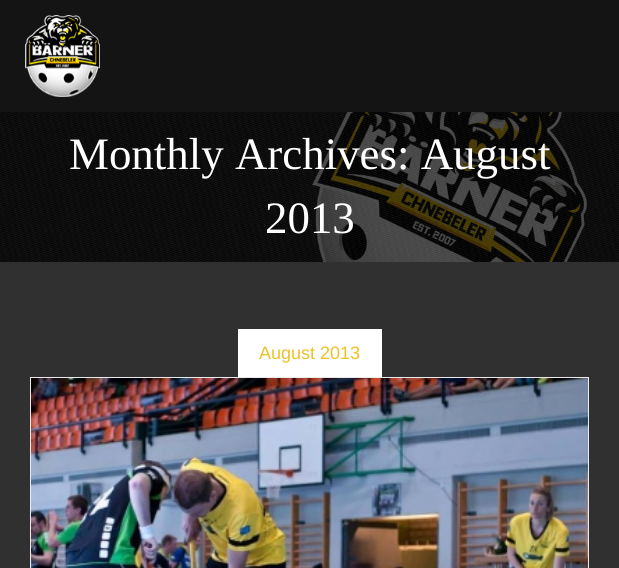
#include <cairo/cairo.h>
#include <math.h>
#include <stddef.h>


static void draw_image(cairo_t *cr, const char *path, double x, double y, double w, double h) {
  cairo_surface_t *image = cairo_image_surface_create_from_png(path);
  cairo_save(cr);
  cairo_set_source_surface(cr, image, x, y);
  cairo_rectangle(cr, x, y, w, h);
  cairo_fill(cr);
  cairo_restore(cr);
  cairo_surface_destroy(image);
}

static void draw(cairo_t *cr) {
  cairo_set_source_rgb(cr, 48 / 255.0, 48 / 255.0, 48 / 255.0);
  cairo_paint(cr);
  cairo_set_source_rgb(cr, 20 / 255.0, 20 / 255.0, 20 / 255.0);
  cairo_rectangle(cr, 0, 0, 619, 112);
  cairo_fill(cr);
  draw_image(cr, "images/1.png", 25, 15, 75, 82);
  draw_image(cr, "images/2.png", 0, 112, 619, 150);
  cairo_set_source_rgb(cr, 1, 1, 1);
  cairo_rectangle(cr, 238, 329, 144, 48);
  cairo_fill(cr);
  cairo_set_source_rgb(cr, 234 / 255.0, 234 / 255.0, 234 / 255.0);
  cairo_rectangle(cr, 30, 377, 559, 1);
  cairo_fill(cr);
  cairo_rectangle(cr, 588, 377, 1, 191);
  cairo_fill(cr);
  cairo_rectangle(cr, 30, 377, 1, 191);
  cairo_fill(cr);
  draw_image(cr, "images/3.png", 31, 378, 557, 190);
  cairo_select_font_face(cr, "Liberation Serif", CAIRO_FONT_SLANT_NORMAL, CAIRO_FONT_WEIGHT_NORMAL);
  cairo_set_font_size(cr, 44.9);
  cairo_set_source_rgb(cr, 1, 1, 1);
  cairo_move_to(cr, 69, 169);
  cairo_show_text(cr, "Monthly Archives: August");
  cairo_move_to(cr, 265, 233);
  cairo_show_text(cr, "2013");
  cairo_select_font_face(cr, "Liberation Sans", CAIRO_FONT_SLANT_NORMAL, CAIRO_FONT_WEIGHT_NORMAL);
  cairo_set_font_size(cr, 18);
  cairo_set_source_rgb(cr, 238 / 255.0, 193 / 255.0, 38 / 255.0);
  cairo_move_to(cr, 259, 359);
  cairo_show_text(cr, "August 2013");
}

int main(void) {
  cairo_surface_t *surface = cairo_image_surface_create(CAIRO_FORMAT_RGB24, 619, 568);
  cairo_t *cr = cairo_create(surface);
  cairo_font_options_t *options = cairo_font_options_create();
  cairo_font_options_set_hint_metrics(options, CAIRO_HINT_METRICS_OFF);
  cairo_font_options_set_hint_style(options, CAIRO_HINT_STYLE_NONE);
  cairo_set_font_options(cr, options);
  cairo_set_miter_limit(cr, 4);
  draw(cr);
  cairo_surface_write_to_png(surface, "out.png");
  cairo_font_options_destroy(options);
  cairo_destroy(cr);
  cairo_surface_destroy(surface);
  return 0;
}
